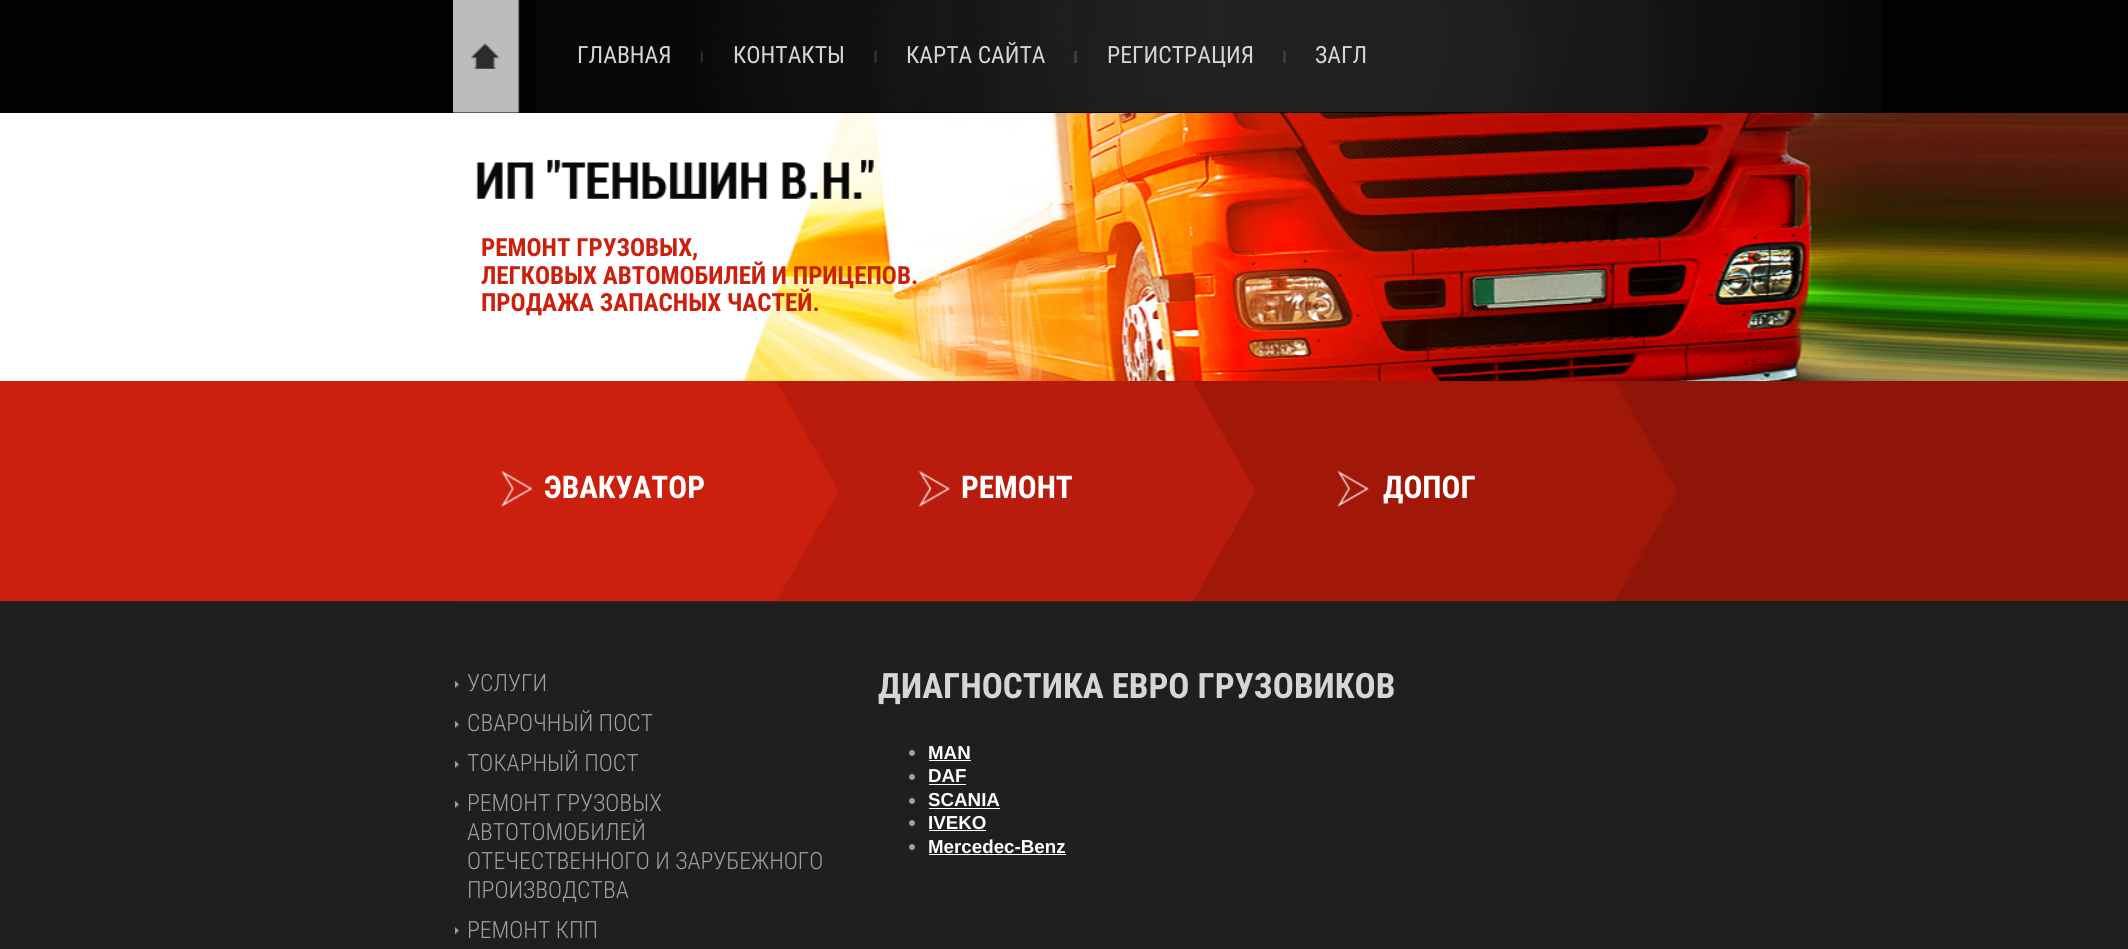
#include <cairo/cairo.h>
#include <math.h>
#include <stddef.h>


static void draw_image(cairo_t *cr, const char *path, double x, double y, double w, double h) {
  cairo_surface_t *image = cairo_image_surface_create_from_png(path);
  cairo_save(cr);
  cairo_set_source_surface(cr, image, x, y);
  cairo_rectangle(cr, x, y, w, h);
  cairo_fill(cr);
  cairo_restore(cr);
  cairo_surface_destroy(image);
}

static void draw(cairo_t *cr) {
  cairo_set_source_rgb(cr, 1, 1, 1);
  cairo_paint(cr);
  cairo_set_source_rgb(cr, 2 / 255.0, 2 / 255.0, 2 / 255.0);
  cairo_rectangle(cr, 0, 0, 2128, 113);
  cairo_fill(cr);
  draw_image(cr, "images/1.png", 536, 0, 1346, 112);
  draw_image(cr, "images/2.png", 453, 0, 67, 113);
  draw_image(cr, "images/3.png", 701, 51, 2, 12);
  cairo_set_source_rgb(cr, 46 / 255.0, 46 / 255.0, 46 / 255.0);
  cairo_rectangle(cr, 874, 51, 3, 12);
  cairo_fill(cr);
  cairo_set_source_rgb(cr, 61 / 255.0, 61 / 255.0, 61 / 255.0);
  cairo_rectangle(cr, 1074, 51, 3, 12);
  cairo_fill(cr);
  cairo_set_source_rgb(cr, 57 / 255.0, 57 / 255.0, 57 / 255.0);
  cairo_rectangle(cr, 1283, 51, 3, 12);
  cairo_fill(cr);
  draw_image(cr, "images/4.png", 742, 113, 1386, 268);
  draw_image(cr, "images/5.png", 476, 159, 398, 40);
  cairo_set_source_rgb(cr, 31 / 255.0, 31 / 255.0, 31 / 255.0);
  cairo_rectangle(cr, 0, 601, 2128, 348);
  cairo_fill(cr);
  cairo_set_source_rgb(cr, 203 / 255.0, 32 / 255.0, 14 / 255.0);
  cairo_rectangle(cr, 0, 381, 1065, 220);
  cairo_fill(cr);
  cairo_set_source_rgb(cr, 142 / 255.0, 21 / 255.0, 8 / 255.0);
  cairo_rectangle(cr, 1065, 381, 1063, 220);
  cairo_fill(cr);
  draw_image(cr, "images/6.png", 451, 601, 327, 1);
  draw_image(cr, "images/7.png", 501, 470, 32, 37);
  draw_image(cr, "images/8.png", 776, 381, 481, 221);
  draw_image(cr, "images/9.png", 918, 470, 32, 37);
  draw_image(cr, "images/10.png", 1193, 381, 485, 221);
  draw_image(cr, "images/11.png", 1337, 470, 32, 37);
  draw_image(cr, "images/12.png", 455, 681, 4, 7);
  draw_image(cr, "images/12.png", 455, 721, 4, 7);
  draw_image(cr, "images/12.png", 455, 761, 4, 7);
  draw_image(cr, "images/12.png", 455, 801, 4, 7);
  draw_image(cr, "images/13.png", 455, 927, 4, 7);
  cairo_set_source_rgb(cr, 158 / 255.0, 159 / 255.0, 159 / 255.0);
  cairo_arc(cr, 912, 753, 3, 0, 2 * M_PI);
  cairo_fill(cr);
  cairo_set_source_rgb(cr, 1, 1, 1);
  cairo_rectangle(cr, 929, 760, 42, 1);
  cairo_fill(cr);
  cairo_set_source_rgb(cr, 158 / 255.0, 159 / 255.0, 159 / 255.0);
  cairo_arc(cr, 912, 777, 3, 0, 2 * M_PI);
  cairo_fill(cr);
  cairo_set_source_rgb(cr, 1, 1, 1);
  cairo_rectangle(cr, 929, 784, 37, 1);
  cairo_fill(cr);
  cairo_set_source_rgb(cr, 158 / 255.0, 159 / 255.0, 159 / 255.0);
  cairo_arc(cr, 912, 801, 3, 0, 2 * M_PI);
  cairo_fill(cr);
  cairo_set_source_rgb(cr, 1, 1, 1);
  cairo_rectangle(cr, 929, 808, 71, 1);
  cairo_fill(cr);
  cairo_set_source_rgb(cr, 158 / 255.0, 159 / 255.0, 159 / 255.0);
  cairo_arc(cr, 912, 823, 3, 0, 2 * M_PI);
  cairo_fill(cr);
  cairo_set_source_rgb(cr, 1, 1, 1);
  cairo_rectangle(cr, 929, 830, 57, 1);
  cairo_fill(cr);
  cairo_set_source_rgb(cr, 158 / 255.0, 159 / 255.0, 159 / 255.0);
  cairo_arc(cr, 912, 847, 3, 0, 2 * M_PI);
  cairo_fill(cr);
  cairo_set_source_rgb(cr, 1, 1, 1);
  cairo_rectangle(cr, 929, 854, 137, 1);
  cairo_fill(cr);
  cairo_select_font_face(cr, "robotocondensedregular", CAIRO_FONT_SLANT_NORMAL, CAIRO_FONT_WEIGHT_NORMAL);
  cairo_set_font_size(cr, 23.75);
  cairo_set_source_rgb(cr, 214 / 255.0, 214 / 255.0, 214 / 255.0);
  cairo_move_to(cr, 577, 63);
  cairo_show_text(cr, "ГЛАВНАЯ");
  cairo_move_to(cr, 733, 63);
  cairo_show_text(cr, "КОНТАКТЫ");
  cairo_move_to(cr, 906, 63);
  cairo_show_text(cr, "КАРТА САЙТА");
  cairo_move_to(cr, 1107, 63);
  cairo_show_text(cr, "РЕГИСТРАЦИЯ");
  cairo_move_to(cr, 1315, 63);
  cairo_show_text(cr, "ЗАГЛ");
  cairo_select_font_face(cr, "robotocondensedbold", CAIRO_FONT_SLANT_NORMAL, CAIRO_FONT_WEIGHT_BOLD);
  cairo_set_font_size(cr, 25);
  cairo_set_source_rgb(cr, 203 / 255.0, 32 / 255.0, 14 / 255.0);
  cairo_move_to(cr, 481, 256);
  cairo_show_text(cr, "РЕМОНТ ГРУЗОВЫХ,");
  cairo_move_to(cr, 481, 284);
  cairo_show_text(cr, "ЛЕГКОВЫХ АВТОМОБИЛЕЙ И ПРИЦЕПОВ.");
  cairo_move_to(cr, 481, 311);
  cairo_show_text(cr, "ПРОДАЖА ЗАПАСНЫХ ЧАСТЕЙ.");
  cairo_set_font_size(cr, 31.25);
  cairo_set_source_rgb(cr, 1, 1, 1);
  cairo_move_to(cr, 544, 498);
  cairo_show_text(cr, "ЭВАКУАТОР");
  cairo_move_to(cr, 961, 498);
  cairo_show_text(cr, "РЕМОНТ");
  cairo_move_to(cr, 1383, 498);
  cairo_show_text(cr, "ДОПОГ");
  cairo_select_font_face(cr, "Roboto Condensed Light", CAIRO_FONT_SLANT_NORMAL, CAIRO_FONT_WEIGHT_NORMAL);
  cairo_set_font_size(cr, 23.75);
  cairo_set_source_rgb(cr, 160 / 255.0, 160 / 255.0, 160 / 255.0);
  cairo_move_to(cr, 467, 691);
  cairo_show_text(cr, "УСЛУГИ");
  cairo_move_to(cr, 467, 731);
  cairo_show_text(cr, "СВАРОЧНЫЙ ПОСТ");
  cairo_move_to(cr, 467, 771);
  cairo_show_text(cr, "ТОКАРНЫЙ ПОСТ");
  cairo_move_to(cr, 467, 811);
  cairo_show_text(cr, "РЕМОНТ ГРУЗОВЫХ");
  cairo_move_to(cr, 467, 840);
  cairo_show_text(cr, "АВТОТОМОБИЛЕЙ");
  cairo_move_to(cr, 467, 869);
  cairo_show_text(cr, "ОТЕЧЕСТВЕННОГО И ЗАРУБЕЖНОГО");
  cairo_move_to(cr, 467, 898);
  cairo_show_text(cr, "ПРОИЗВОДСТВА");
  cairo_move_to(cr, 467, 938);
  cairo_show_text(cr, "РЕМОНТ КПП");
  cairo_select_font_face(cr, "robotocondensedbold", CAIRO_FONT_SLANT_NORMAL, CAIRO_FONT_WEIGHT_BOLD);
  cairo_set_font_size(cr, 35);
  cairo_set_source_rgb(cr, 214 / 255.0, 214 / 255.0, 214 / 255.0);
  cairo_move_to(cr, 878, 698);
  cairo_show_text(cr, "ДИАГНОСТИКА ЕВРО ГРУЗОВИКОВ");
  cairo_select_font_face(cr, "Liberation Sans", CAIRO_FONT_SLANT_NORMAL, CAIRO_FONT_WEIGHT_BOLD);
  cairo_set_font_size(cr, 18.75);
  cairo_set_source_rgb(cr, 1, 1, 1);
  cairo_move_to(cr, 928, 759);
  cairo_show_text(cr, "MAN");
  cairo_move_to(cr, 928, 782);
  cairo_show_text(cr, "DAF");
  cairo_move_to(cr, 928, 806);
  cairo_show_text(cr, "SCANIA");
  cairo_move_to(cr, 928, 829);
  cairo_show_text(cr, "IVEKO");
  cairo_move_to(cr, 928, 853);
  cairo_show_text(cr, "Mercedec-Benz");
}

int main(void) {
  cairo_surface_t *surface = cairo_image_surface_create(CAIRO_FORMAT_RGB24, 2128, 949);
  cairo_t *cr = cairo_create(surface);
  cairo_font_options_t *options = cairo_font_options_create();
  cairo_font_options_set_hint_metrics(options, CAIRO_HINT_METRICS_OFF);
  cairo_font_options_set_hint_style(options, CAIRO_HINT_STYLE_NONE);
  cairo_set_font_options(cr, options);
  cairo_set_miter_limit(cr, 4);
  draw(cr);
  cairo_surface_write_to_png(surface, "out.png");
  cairo_font_options_destroy(options);
  cairo_destroy(cr);
  cairo_surface_destroy(surface);
  return 0;
}
